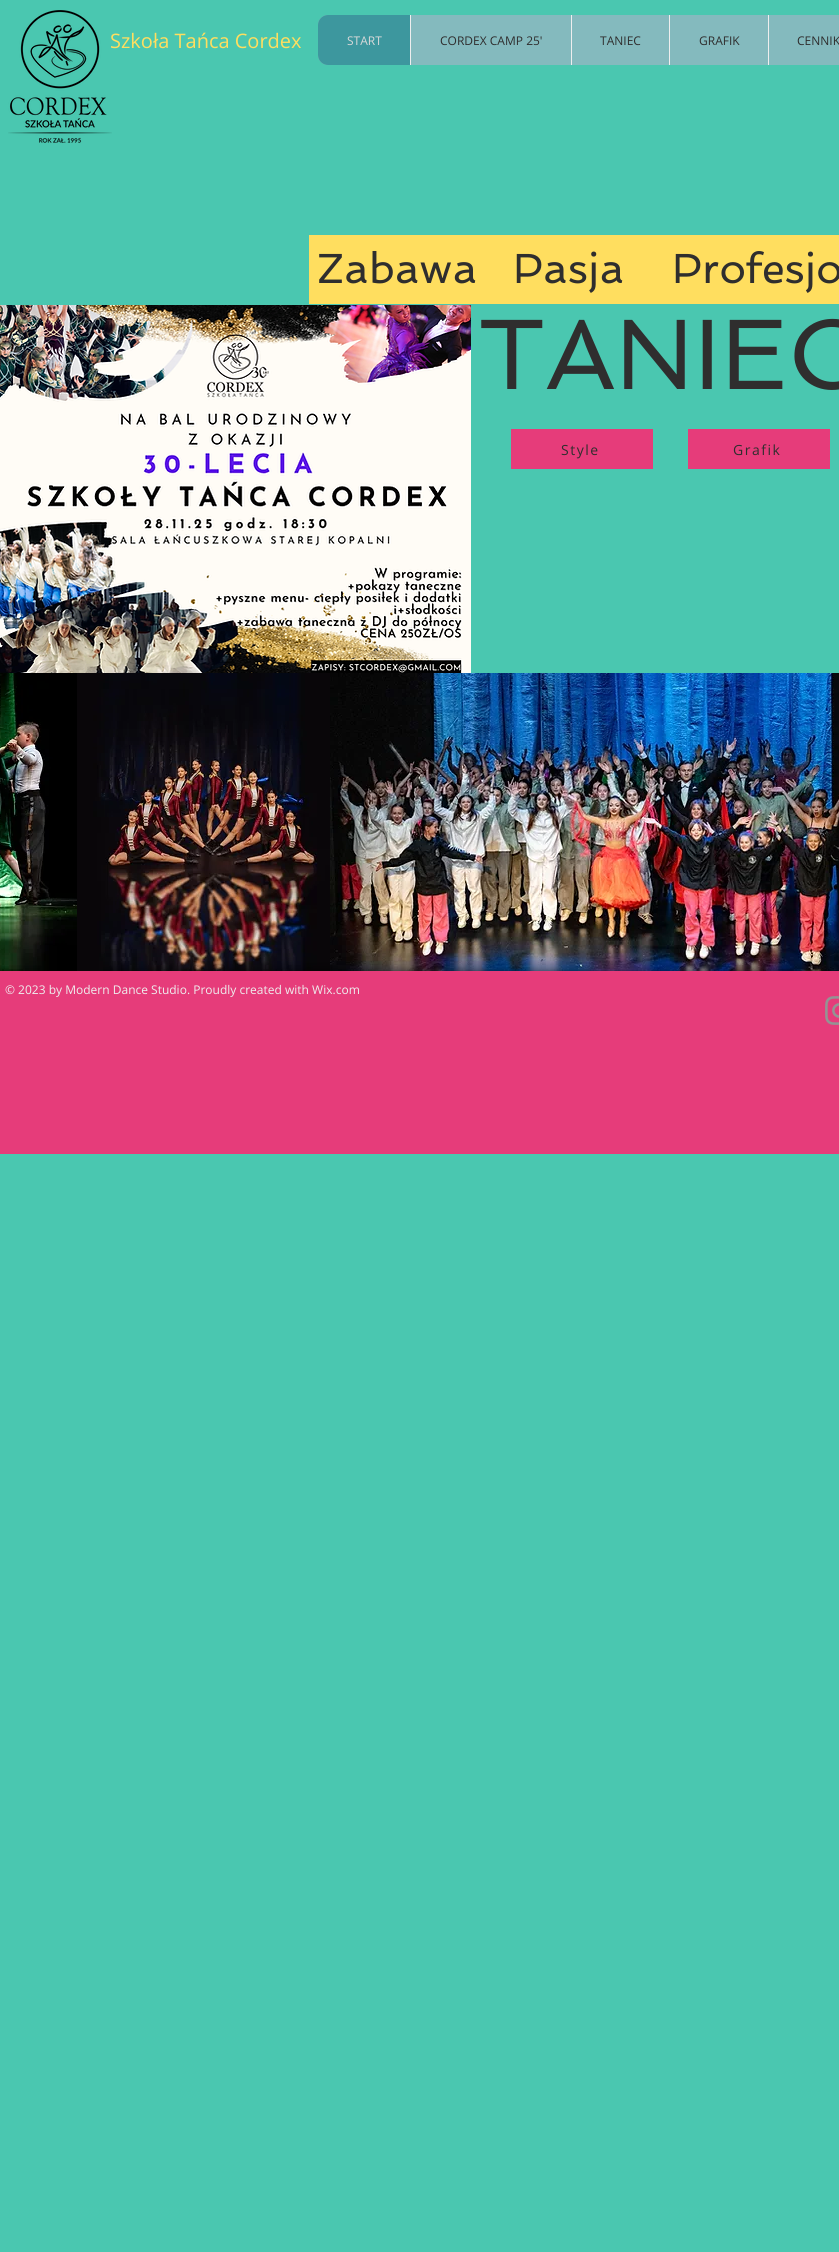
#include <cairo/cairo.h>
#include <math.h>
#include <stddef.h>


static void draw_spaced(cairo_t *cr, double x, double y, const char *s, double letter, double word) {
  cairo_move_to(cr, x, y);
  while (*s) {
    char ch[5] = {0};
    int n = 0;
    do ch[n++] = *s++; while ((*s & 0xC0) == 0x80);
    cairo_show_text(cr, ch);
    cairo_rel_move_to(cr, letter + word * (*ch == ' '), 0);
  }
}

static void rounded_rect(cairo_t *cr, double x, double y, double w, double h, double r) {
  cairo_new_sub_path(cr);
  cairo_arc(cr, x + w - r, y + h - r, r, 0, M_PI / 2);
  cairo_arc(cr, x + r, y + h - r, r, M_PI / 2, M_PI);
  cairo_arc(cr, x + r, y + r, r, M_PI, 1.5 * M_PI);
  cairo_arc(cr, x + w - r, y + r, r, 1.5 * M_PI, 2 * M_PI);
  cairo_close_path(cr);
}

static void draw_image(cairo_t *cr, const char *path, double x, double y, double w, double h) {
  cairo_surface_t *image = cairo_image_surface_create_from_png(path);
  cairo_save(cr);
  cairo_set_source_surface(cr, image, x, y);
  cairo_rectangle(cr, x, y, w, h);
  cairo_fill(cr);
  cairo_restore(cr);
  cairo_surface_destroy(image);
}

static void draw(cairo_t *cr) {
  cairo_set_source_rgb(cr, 74 / 255.0, 199 / 255.0, 176 / 255.0);
  cairo_paint(cr);
  draw_image(cr, "images/1.png", 8, 10, 104, 133);
  cairo_set_source_rgb(cr, 132 / 255.0, 186 / 255.0, 190 / 255.0);
  rounded_rect(cr, 318, 15, 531, 50, 10);
  cairo_fill(cr);
  cairo_set_source_rgb(cr, 61 / 255.0, 151 / 255.0, 158 / 255.0);
  cairo_new_path(cr);
  cairo_move_to(cr, 328, 15);
  cairo_line_to(cr, 410, 15);
  cairo_line_to(cr, 410, 65);
  cairo_line_to(cr, 328, 65);
  cairo_curve_to(cr, 322.5, 65, 318, 60.5, 318, 55);
  cairo_line_to(cr, 318, 25);
  cairo_curve_to(cr, 318, 19.5, 322.5, 15, 328, 15);
  cairo_close_path(cr);
  cairo_fill(cr);
  cairo_set_source_rgb(cr, 238 / 255.0, 238 / 255.0, 238 / 255.0);
  cairo_rectangle(cr, 410, 15, 1, 50);
  cairo_fill(cr);
  cairo_rectangle(cr, 571, 15, 1, 50);
  cairo_fill(cr);
  cairo_rectangle(cr, 669, 15, 1, 50);
  cairo_fill(cr);
  cairo_rectangle(cr, 768, 15, 1, 50);
  cairo_fill(cr);
  cairo_set_source_rgb(cr, 1, 222 / 255.0, 95 / 255.0);
  cairo_rectangle(cr, 309, 235, 530, 69);
  cairo_fill(cr);
  draw_image(cr, "images/2.png", 0, 305, 471, 368);
  cairo_set_source_rgb(cr, 230 / 255.0, 60 / 255.0, 122 / 255.0);
  cairo_rectangle(cr, 511, 429, 142, 40);
  cairo_fill(cr);
  cairo_rectangle(cr, 688, 429, 142, 40);
  cairo_fill(cr);
  draw_image(cr, "images/3.png", 0, 673, 77, 298);
  draw_image(cr, "images/4.png", 77, 673, 253, 298);
  draw_image(cr, "images/5.png", 330, 673, 509, 298);
  cairo_rectangle(cr, 0, 971, 839, 183);
  cairo_fill(cr);
  draw_image(cr, "images/6.png", 103, 960, 736, 11);
  draw_image(cr, "images/7.png", 825, 996, 14, 29);
  cairo_select_font_face(cr, "Open Sans", CAIRO_FONT_SLANT_NORMAL, CAIRO_FONT_WEIGHT_NORMAL);
  cairo_set_font_size(cr, 20);
  cairo_set_source_rgb(cr, 1, 222 / 255.0, 95 / 255.0);
  cairo_move_to(cr, 110, 48);
  cairo_show_text(cr, "Szkoła Tańca Cordex");
  cairo_set_font_size(cr, 12);
  cairo_set_source_rgb(cr, 217 / 255.0, 217 / 255.0, 217 / 255.0);
  cairo_move_to(cr, 347, 45);
  cairo_show_text(cr, "START");
  cairo_set_source_rgb(cr, 47 / 255.0, 46 / 255.0, 46 / 255.0);
  cairo_move_to(cr, 440, 45);
  cairo_show_text(cr, "CORDEX CAMP 25'");
  cairo_move_to(cr, 600, 45);
  cairo_show_text(cr, "TANIEC");
  cairo_move_to(cr, 699, 45);
  cairo_show_text(cr, "GRAFIK");
  cairo_move_to(cr, 797, 45);
  cairo_show_text(cr, "CENNIK");
  cairo_select_font_face(cr, "Spinnaker", CAIRO_FONT_SLANT_NORMAL, CAIRO_FONT_WEIGHT_NORMAL);
  cairo_set_font_size(cr, 42);
  cairo_move_to(cr, 317, 283);
  cairo_show_text(cr, "Zabawa   Pasja    Profesjo");
  cairo_set_font_size(cr, 100);
  cairo_move_to(cr, 478, 389);
  cairo_show_text(cr, "TANIEC");
  cairo_select_font_face(cr, "Open Sans", CAIRO_FONT_SLANT_NORMAL, CAIRO_FONT_WEIGHT_NORMAL);
  cairo_set_font_size(cr, 14);
  draw_spaced(cr, 561, 455, "Style", 1.5, 0);
  draw_spaced(cr, 733, 455, "Grafik", 1.5, 0);
  cairo_set_font_size(cr, 12);
  cairo_set_source_rgb(cr, 238 / 255.0, 238 / 255.0, 238 / 255.0);
  cairo_move_to(cr, 5, 994);
  cairo_show_text(cr, "© 2023 by Modern Dance Studio. Proudly created with Wix.com");
}

int main(void) {
  cairo_surface_t *surface = cairo_image_surface_create(CAIRO_FORMAT_RGB24, 839, 2252);
  cairo_t *cr = cairo_create(surface);
  cairo_font_options_t *options = cairo_font_options_create();
  cairo_font_options_set_hint_metrics(options, CAIRO_HINT_METRICS_OFF);
  cairo_font_options_set_hint_style(options, CAIRO_HINT_STYLE_NONE);
  cairo_set_font_options(cr, options);
  cairo_set_miter_limit(cr, 4);
  draw(cr);
  cairo_surface_write_to_png(surface, "out.png");
  cairo_font_options_destroy(options);
  cairo_destroy(cr);
  cairo_surface_destroy(surface);
  return 0;
}
